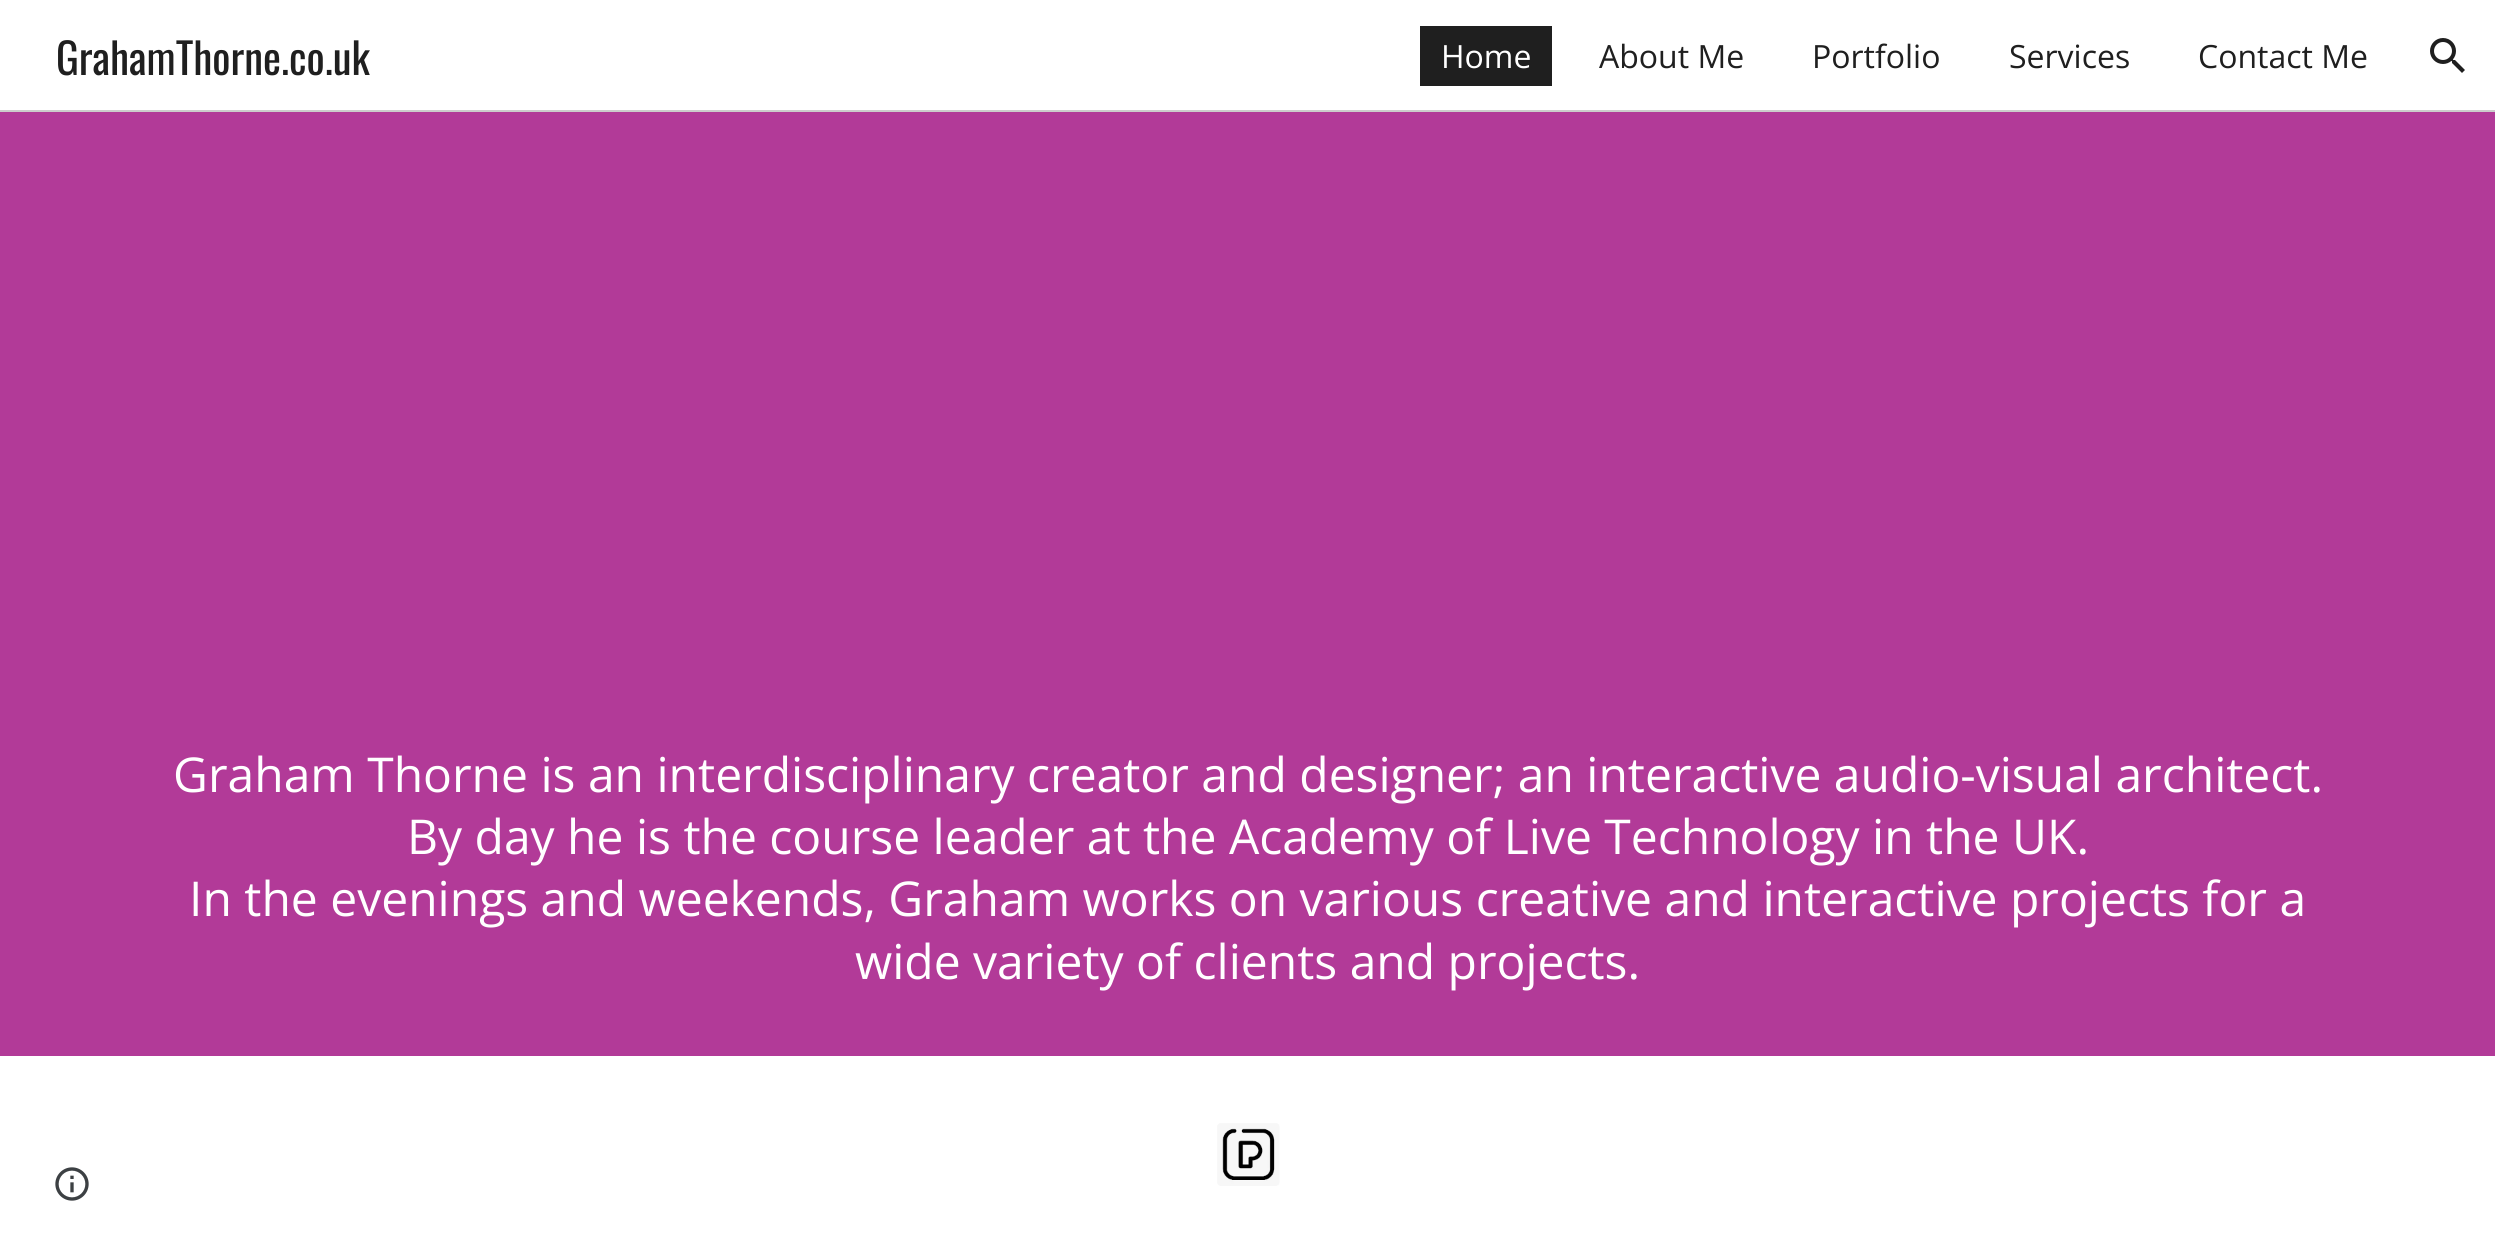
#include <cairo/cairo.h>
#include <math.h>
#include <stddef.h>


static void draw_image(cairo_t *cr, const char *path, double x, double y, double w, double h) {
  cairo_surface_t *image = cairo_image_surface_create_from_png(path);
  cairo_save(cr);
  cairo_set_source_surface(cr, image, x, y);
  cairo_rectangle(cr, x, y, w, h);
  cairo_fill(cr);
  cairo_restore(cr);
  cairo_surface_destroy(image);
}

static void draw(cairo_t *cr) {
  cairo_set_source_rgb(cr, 1, 1, 1);
  cairo_paint(cr);
  cairo_set_source_rgb(cr, 31 / 255.0, 31 / 255.0, 31 / 255.0);
  cairo_rectangle(cr, 1420, 26, 132, 60);
  cairo_fill(cr);
  draw_image(cr, "images/1.png", 2430, 38, 35, 35);
  cairo_set_source_rgb(cr, 204 / 255.0, 204 / 255.0, 204 / 255.0);
  cairo_rectangle(cr, 0, 110, 2495, 2);
  cairo_fill(cr);
  cairo_set_source_rgb(cr, 178 / 255.0, 58 / 255.0, 152 / 255.0);
  cairo_rectangle(cr, 0, 112, 2495, 944);
  cairo_fill(cr);
  draw_image(cr, "images/2.png", 1217, 1123, 63, 63);
  draw_image(cr, "images/3.png", 55, 1167, 34, 34);
  cairo_select_font_face(cr, "Oswald", CAIRO_FONT_SLANT_NORMAL, CAIRO_FONT_WEIGHT_NORMAL);
  cairo_set_font_size(cr, 42.75);
  cairo_set_source_rgb(cr, 31 / 255.0, 31 / 255.0, 31 / 255.0);
  cairo_move_to(cr, 56, 75);
  cairo_show_text(cr, "GrahamThorne.co.uk");
  cairo_select_font_face(cr, "Open Sans", CAIRO_FONT_SLANT_NORMAL, CAIRO_FONT_WEIGHT_NORMAL);
  cairo_set_font_size(cr, 32);
  cairo_set_source_rgb(cr, 1, 1, 1);
  cairo_move_to(cr, 1441, 68);
  cairo_show_text(cr, "Home");
  cairo_set_source_rgb(cr, 31 / 255.0, 31 / 255.0, 31 / 255.0);
  cairo_move_to(cr, 1599, 68);
  cairo_show_text(cr, "About Me");
  cairo_move_to(cr, 1812, 68);
  cairo_show_text(cr, "Portfolio");
  cairo_move_to(cr, 2009, 68);
  cairo_show_text(cr, "Services");
  cairo_move_to(cr, 2198, 68);
  cairo_show_text(cr, "Contact Me");
  cairo_set_font_size(cr, 48);
  cairo_set_source_rgb(cr, 1, 1, 1);
  cairo_move_to(cr, 173, 792);
  cairo_show_text(cr, "Graham Thorne is an interdisciplinary creator and designer; an interactive audio-visual architect.");
  cairo_move_to(cr, 407, 854);
  cairo_show_text(cr, "By day he is the course leader at the Academy of Live Technology in the UK.");
  cairo_move_to(cr, 189, 916);
  cairo_show_text(cr, "In the evenings and weekends, Graham works on various creative and interactive projects for a");
  cairo_move_to(cr, 855, 979);
  cairo_show_text(cr, "wide variety of clients and projects.");
}

int main(void) {
  cairo_surface_t *surface = cairo_image_surface_create(CAIRO_FORMAT_RGB24, 2495, 1252);
  cairo_t *cr = cairo_create(surface);
  cairo_font_options_t *options = cairo_font_options_create();
  cairo_font_options_set_hint_metrics(options, CAIRO_HINT_METRICS_OFF);
  cairo_font_options_set_hint_style(options, CAIRO_HINT_STYLE_NONE);
  cairo_set_font_options(cr, options);
  cairo_set_miter_limit(cr, 4);
  draw(cr);
  cairo_surface_write_to_png(surface, "out.png");
  cairo_font_options_destroy(options);
  cairo_destroy(cr);
  cairo_surface_destroy(surface);
  return 0;
}
